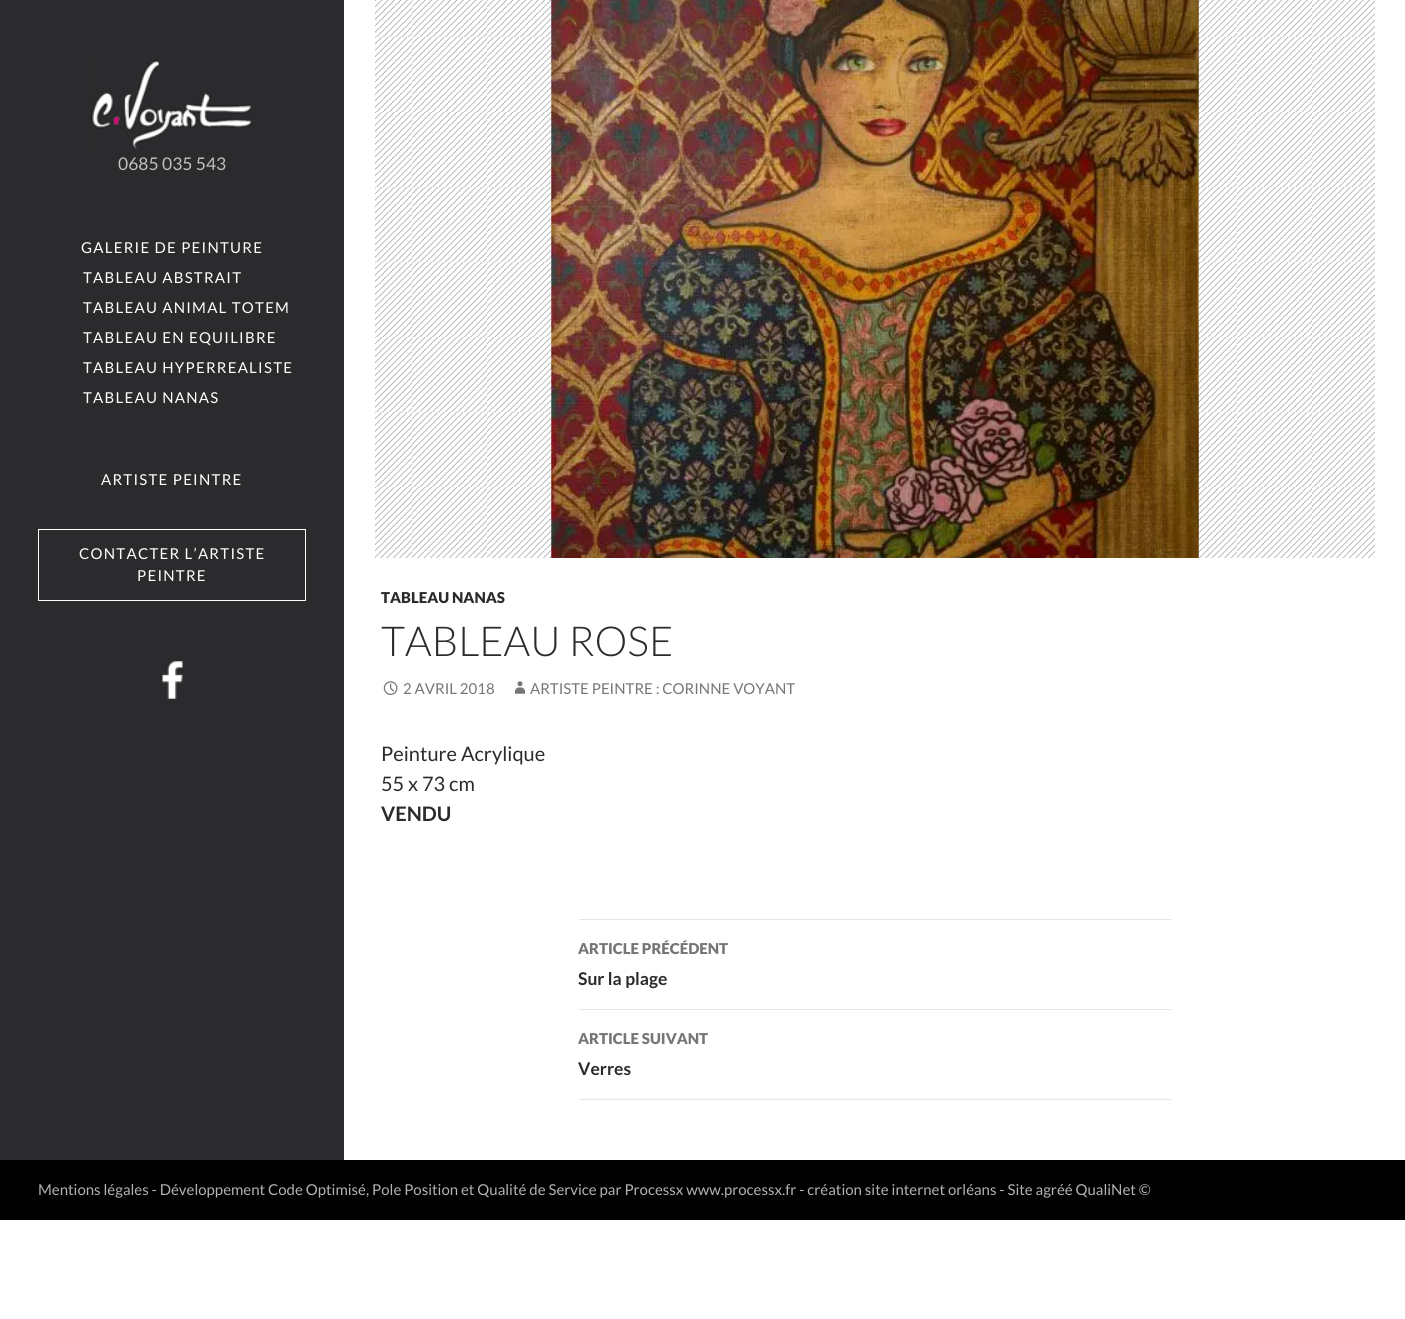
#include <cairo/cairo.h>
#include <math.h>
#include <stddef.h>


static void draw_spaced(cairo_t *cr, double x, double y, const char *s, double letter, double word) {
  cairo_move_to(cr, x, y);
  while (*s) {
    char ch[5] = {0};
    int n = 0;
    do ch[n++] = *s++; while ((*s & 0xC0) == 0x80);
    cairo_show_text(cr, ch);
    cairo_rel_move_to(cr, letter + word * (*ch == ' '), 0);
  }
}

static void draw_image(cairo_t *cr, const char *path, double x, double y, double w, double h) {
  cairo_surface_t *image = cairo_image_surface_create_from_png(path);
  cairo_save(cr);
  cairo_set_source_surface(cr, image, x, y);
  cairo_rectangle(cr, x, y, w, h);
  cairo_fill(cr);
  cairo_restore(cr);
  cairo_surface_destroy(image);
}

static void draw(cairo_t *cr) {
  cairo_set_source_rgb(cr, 1, 1, 1);
  cairo_paint(cr);
  cairo_set_source_rgb(cr, 43 / 255.0, 43 / 255.0, 45 / 255.0);
  cairo_rectangle(cr, 0, 0, 344, 1160);
  cairo_fill(cr);
  draw_image(cr, "images/1.png", 91, 60, 162, 89);
  cairo_rectangle(cr, 38.5, 529.5, 267, 71);
  cairo_set_source_rgb(cr, 1, 1, 1);
  cairo_set_line_width(cr, 1);
  cairo_stroke(cr);
  draw_image(cr, "images/2.png", 162, 661, 21, 38);
  cairo_set_source_rgb(cr, 178 / 255.0, 178 / 255.0, 178 / 255.0);
  cairo_rectangle(cr, 375, 0, 1000, 558);
  cairo_fill(cr);
  draw_image(cr, "images/3.png", 375, 0, 1000, 558);
  draw_image(cr, "images/4.png", 551, 0, 648, 558);
  draw_image(cr, "images/5.png", 383, 681, 15, 14);
  draw_image(cr, "images/6.png", 515, 681, 10, 13);
  cairo_set_source_rgb(cr, 230 / 255.0, 230 / 255.0, 230 / 255.0);
  cairo_rectangle(cr, 579, 919, 592, 1);
  cairo_fill(cr);
  cairo_rectangle(cr, 579, 1009, 592, 1);
  cairo_fill(cr);
  cairo_rectangle(cr, 579, 1099, 592, 1);
  cairo_fill(cr);
  cairo_set_source_rgb(cr, 0, 0, 0);
  cairo_rectangle(cr, 0, 1160, 1405, 60);
  cairo_fill(cr);
  cairo_select_font_face(cr, "Lato", CAIRO_FONT_SLANT_NORMAL, CAIRO_FONT_WEIGHT_NORMAL);
  cairo_set_font_size(cr, 17.5);
  cairo_set_source_rgb(cr, 191 / 255.0, 191 / 255.0, 192 / 255.0);
  cairo_move_to(cr, 118, 170);
  cairo_show_text(cr, "0685 035 543");
  cairo_set_font_size(cr, 15);
  cairo_set_source_rgb(cr, 1, 1, 1);
  draw_spaced(cr, 81, 253, "GALERIE DE PEINTURE", 1.25, 0);
  draw_spaced(cr, 83, 283, "TABLEAU ABSTRAIT", 1.25, 0);
  draw_spaced(cr, 83, 313, "TABLEAU ANIMAL TOTEM", 1.25, 0);
  draw_spaced(cr, 83, 343, "TABLEAU EN EQUILIBRE", 1.25, 0);
  draw_spaced(cr, 83, 373, "TABLEAU HYPERREALISTE", 1.25, 0);
  draw_spaced(cr, 83, 403, "TABLEAU NANAS", 1.25, 0);
  draw_spaced(cr, 101, 485, "ARTISTE PEINTRE", 1.25, 0);
  draw_spaced(cr, 79, 559, "CONTACTER L’ARTISTE", 1.25, 0);
  draw_spaced(cr, 137, 581, "PEINTRE", 1.25, 0);
  cairo_select_font_face(cr, "Lato Black", CAIRO_FONT_SLANT_NORMAL, CAIRO_FONT_WEIGHT_NORMAL);
  cairo_set_source_rgb(cr, 43 / 255.0, 43 / 255.0, 43 / 255.0);
  cairo_move_to(cr, 381, 603);
  cairo_show_text(cr, "TABLEAU NANAS");
  cairo_select_font_face(cr, "Lato Light", CAIRO_FONT_SLANT_NORMAL, CAIRO_FONT_WEIGHT_NORMAL);
  cairo_set_font_size(cr, 41.25);
  cairo_move_to(cr, 381, 656);
  cairo_show_text(cr, "TABLEAU ROSE");
  cairo_select_font_face(cr, "Lato", CAIRO_FONT_SLANT_NORMAL, CAIRO_FONT_WEIGHT_NORMAL);
  cairo_set_font_size(cr, 15);
  cairo_set_source_rgb(cr, 118 / 255.0, 118 / 255.0, 118 / 255.0);
  cairo_move_to(cr, 403, 694);
  cairo_show_text(cr, "2 AVRIL 2018");
  cairo_move_to(cr, 530, 694);
  cairo_show_text(cr, "ARTISTE PEINTRE : CORINNE VOYANT");
  cairo_set_font_size(cr, 20);
  cairo_set_source_rgb(cr, 43 / 255.0, 43 / 255.0, 43 / 255.0);
  cairo_move_to(cr, 381, 761);
  cairo_show_text(cr, "Peinture Acrylique");
  cairo_move_to(cr, 381, 791);
  cairo_show_text(cr, "55 x 73 cm");
  cairo_select_font_face(cr, "Lato", CAIRO_FONT_SLANT_NORMAL, CAIRO_FONT_WEIGHT_BOLD);
  cairo_move_to(cr, 381, 821);
  cairo_show_text(cr, "VENDU");
  cairo_select_font_face(cr, "Lato Black", CAIRO_FONT_SLANT_NORMAL, CAIRO_FONT_WEIGHT_NORMAL);
  cairo_set_font_size(cr, 15);
  cairo_set_source_rgb(cr, 118 / 255.0, 118 / 255.0, 118 / 255.0);
  cairo_move_to(cr, 578, 954);
  cairo_show_text(cr, "ARTICLE PRÉCÉDENT");
  cairo_select_font_face(cr, "Lato", CAIRO_FONT_SLANT_NORMAL, CAIRO_FONT_WEIGHT_BOLD);
  cairo_set_font_size(cr, 17.5);
  cairo_set_source_rgb(cr, 43 / 255.0, 43 / 255.0, 43 / 255.0);
  cairo_move_to(cr, 578, 985);
  cairo_show_text(cr, "Sur la plage");
  cairo_select_font_face(cr, "Lato Black", CAIRO_FONT_SLANT_NORMAL, CAIRO_FONT_WEIGHT_NORMAL);
  cairo_set_font_size(cr, 15);
  cairo_set_source_rgb(cr, 118 / 255.0, 118 / 255.0, 118 / 255.0);
  cairo_move_to(cr, 578, 1044);
  cairo_show_text(cr, "ARTICLE SUIVANT");
  cairo_select_font_face(cr, "Lato", CAIRO_FONT_SLANT_NORMAL, CAIRO_FONT_WEIGHT_BOLD);
  cairo_set_font_size(cr, 17.5);
  cairo_set_source_rgb(cr, 43 / 255.0, 43 / 255.0, 43 / 255.0);
  cairo_move_to(cr, 578, 1075);
  cairo_show_text(cr, "Verres");
  cairo_select_font_face(cr, "Lato", CAIRO_FONT_SLANT_NORMAL, CAIRO_FONT_WEIGHT_NORMAL);
  cairo_set_font_size(cr, 15);
  cairo_set_source_rgb(cr, 179 / 255.0, 179 / 255.0, 179 / 255.0);
  cairo_move_to(cr, 38, 1195);
  cairo_show_text(cr, "Mentions légales - Développement Code Optimisé, Pole Position et Qualité de Service par Processx www.processx.fr - création site internet orléans - Site agréé QualiNet ©");
}

int main(void) {
  cairo_surface_t *surface = cairo_image_surface_create(CAIRO_FORMAT_RGB24, 1405, 1319);
  cairo_t *cr = cairo_create(surface);
  cairo_font_options_t *options = cairo_font_options_create();
  cairo_font_options_set_hint_metrics(options, CAIRO_HINT_METRICS_OFF);
  cairo_font_options_set_hint_style(options, CAIRO_HINT_STYLE_NONE);
  cairo_set_font_options(cr, options);
  cairo_set_miter_limit(cr, 4);
  draw(cr);
  cairo_surface_write_to_png(surface, "out.png");
  cairo_font_options_destroy(options);
  cairo_destroy(cr);
  cairo_surface_destroy(surface);
  return 0;
}
